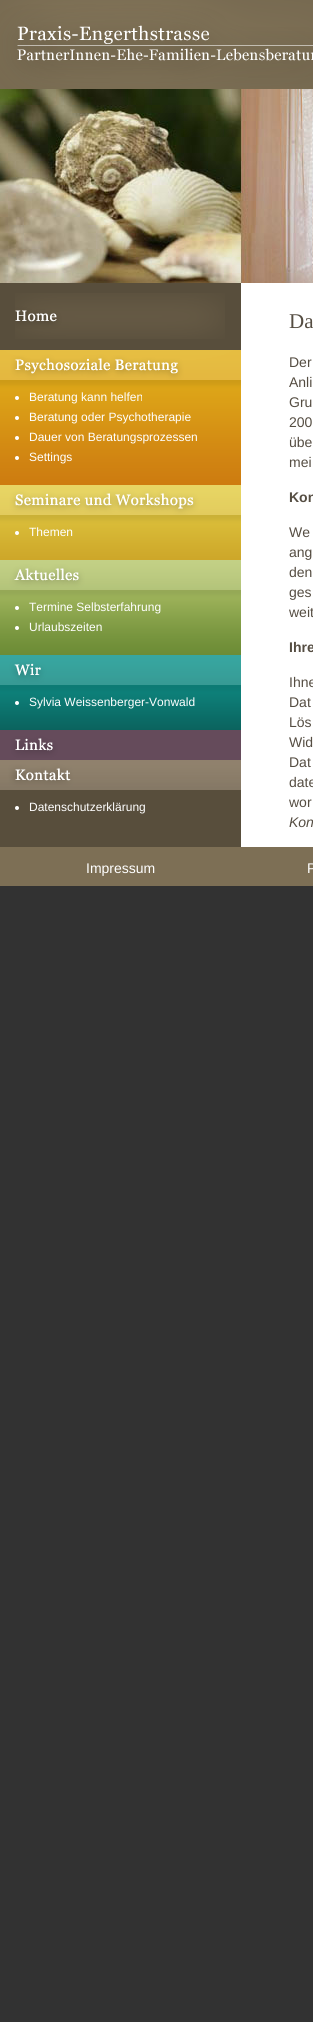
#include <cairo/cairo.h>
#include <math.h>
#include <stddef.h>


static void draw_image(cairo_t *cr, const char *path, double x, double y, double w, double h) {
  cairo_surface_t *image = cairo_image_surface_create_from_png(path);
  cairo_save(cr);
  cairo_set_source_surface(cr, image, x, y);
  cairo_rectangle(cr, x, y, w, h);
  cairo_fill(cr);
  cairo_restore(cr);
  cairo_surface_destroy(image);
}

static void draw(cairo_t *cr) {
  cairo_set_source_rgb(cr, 50 / 255.0, 50 / 255.0, 50 / 255.0);
  cairo_paint(cr);
  draw_image(cr, "images/1.png", 0, 0, 313, 89);
  draw_image(cr, "images/2.png", 0, 89, 313, 194);
  draw_image(cr, "images/3.png", 0, 283, 313, 564);
  draw_image(cr, "images/4.png", 15, 293, 210, 46);
  draw_image(cr, "images/5.png", 0, 350, 241, 30);
  draw_image(cr, "images/6.png", 0, 380, 241, 105);
  cairo_set_source_rgb(cr, 1, 1, 1);
  cairo_arc(cr, 17, 398, 2, 0, 2 * M_PI);
  cairo_fill(cr);
  cairo_arc(cr, 17, 418, 2, 0, 2 * M_PI);
  cairo_fill(cr);
  cairo_arc(cr, 17, 438, 2, 0, 2 * M_PI);
  cairo_fill(cr);
  cairo_arc(cr, 17, 458, 2, 0, 2 * M_PI);
  cairo_fill(cr);
  draw_image(cr, "images/7.png", 0, 485, 241, 30);
  draw_image(cr, "images/8.png", 0, 515, 241, 45);
  cairo_arc(cr, 17, 533, 2, 0, 2 * M_PI);
  cairo_fill(cr);
  draw_image(cr, "images/9.png", 0, 560, 241, 30);
  draw_image(cr, "images/10.png", 0, 590, 241, 65);
  cairo_arc(cr, 17, 608, 2, 0, 2 * M_PI);
  cairo_fill(cr);
  cairo_arc(cr, 17, 628, 2, 0, 2 * M_PI);
  cairo_fill(cr);
  draw_image(cr, "images/11.png", 0, 655, 241, 30);
  draw_image(cr, "images/12.png", 0, 685, 241, 45);
  cairo_arc(cr, 17, 703, 2, 0, 2 * M_PI);
  cairo_fill(cr);
  draw_image(cr, "images/13.png", 0, 730, 241, 30);
  draw_image(cr, "images/14.png", 0, 760, 241, 30);
  cairo_arc(cr, 17, 808, 2, 0, 2 * M_PI);
  cairo_fill(cr);
  cairo_set_source_rgb(cr, 125 / 255.0, 111 / 255.0, 85 / 255.0);
  cairo_rectangle(cr, 0, 847, 313, 39);
  cairo_fill(cr);
  cairo_select_font_face(cr, "Liberation Sans", CAIRO_FONT_SLANT_NORMAL, CAIRO_FONT_WEIGHT_NORMAL);
  cairo_set_font_size(cr, 12);
  cairo_set_source_rgb(cr, 1, 1, 1);
  cairo_move_to(cr, 29, 401);
  cairo_show_text(cr, "Beratung kann helfen");
  cairo_move_to(cr, 29, 421);
  cairo_show_text(cr, "Beratung oder Psychotherapie");
  cairo_move_to(cr, 29, 441);
  cairo_show_text(cr, "Dauer von Beratungsprozessen");
  cairo_move_to(cr, 29, 461);
  cairo_show_text(cr, "Settings");
  cairo_move_to(cr, 29, 536);
  cairo_show_text(cr, "Themen");
  cairo_move_to(cr, 29, 611);
  cairo_show_text(cr, "Termine Selbsterfahrung");
  cairo_move_to(cr, 29, 631);
  cairo_show_text(cr, "Urlaubszeiten");
  cairo_move_to(cr, 29, 706);
  cairo_show_text(cr, "Sylvia Weissenberger-Vonwald");
  cairo_move_to(cr, 29, 811);
  cairo_show_text(cr, "Datenschutzerklärung");
  cairo_select_font_face(cr, "Liberation Serif", CAIRO_FONT_SLANT_NORMAL, CAIRO_FONT_WEIGHT_NORMAL);
  cairo_set_font_size(cr, 21);
  cairo_set_source_rgb(cr, 85 / 255.0, 77 / 255.0, 66 / 255.0);
  cairo_move_to(cr, 289, 328);
  cairo_show_text(cr, "Da");
  cairo_select_font_face(cr, "Liberation Sans", CAIRO_FONT_SLANT_NORMAL, CAIRO_FONT_WEIGHT_NORMAL);
  cairo_set_font_size(cr, 14);
  cairo_move_to(cr, 289, 367);
  cairo_show_text(cr, "Der");
  cairo_move_to(cr, 289, 387);
  cairo_show_text(cr, "Anli");
  cairo_move_to(cr, 289, 407);
  cairo_show_text(cr, "Gru");
  cairo_move_to(cr, 289, 427);
  cairo_show_text(cr, "200");
  cairo_move_to(cr, 289, 447);
  cairo_show_text(cr, "übe");
  cairo_move_to(cr, 289, 467);
  cairo_show_text(cr, "mei");
  cairo_select_font_face(cr, "Liberation Sans", CAIRO_FONT_SLANT_NORMAL, CAIRO_FONT_WEIGHT_BOLD);
  cairo_move_to(cr, 289, 502);
  cairo_show_text(cr, "Kon");
  cairo_select_font_face(cr, "Liberation Sans", CAIRO_FONT_SLANT_NORMAL, CAIRO_FONT_WEIGHT_NORMAL);
  cairo_move_to(cr, 289, 537);
  cairo_show_text(cr, "We");
  cairo_move_to(cr, 289, 557);
  cairo_show_text(cr, "ang");
  cairo_move_to(cr, 289, 577);
  cairo_show_text(cr, "den");
  cairo_move_to(cr, 289, 597);
  cairo_show_text(cr, "ges");
  cairo_move_to(cr, 289, 617);
  cairo_show_text(cr, "weit");
  cairo_select_font_face(cr, "Liberation Sans", CAIRO_FONT_SLANT_NORMAL, CAIRO_FONT_WEIGHT_BOLD);
  cairo_move_to(cr, 289, 652);
  cairo_show_text(cr, "Ihre");
  cairo_select_font_face(cr, "Liberation Sans", CAIRO_FONT_SLANT_NORMAL, CAIRO_FONT_WEIGHT_NORMAL);
  cairo_move_to(cr, 289, 687);
  cairo_show_text(cr, "Ihne");
  cairo_move_to(cr, 289, 707);
  cairo_show_text(cr, "Dat");
  cairo_move_to(cr, 289, 727);
  cairo_show_text(cr, "Lös");
  cairo_move_to(cr, 289, 747);
  cairo_show_text(cr, "Wid");
  cairo_move_to(cr, 289, 767);
  cairo_show_text(cr, "Dat");
  cairo_move_to(cr, 289, 787);
  cairo_show_text(cr, "date");
  cairo_move_to(cr, 289, 807);
  cairo_show_text(cr, "wor");
  cairo_select_font_face(cr, "Liberation Sans", CAIRO_FONT_SLANT_ITALIC, CAIRO_FONT_WEIGHT_NORMAL);
  cairo_move_to(cr, 289, 827);
  cairo_show_text(cr, "Kon");
  cairo_select_font_face(cr, "Liberation Sans", CAIRO_FONT_SLANT_NORMAL, CAIRO_FONT_WEIGHT_NORMAL);
  cairo_set_source_rgb(cr, 1, 1, 1);
  cairo_move_to(cr, 86, 873);
  cairo_show_text(cr, "Impressum");
  cairo_move_to(cr, 307, 873);
  cairo_show_text(cr, "P");
}

int main(void) {
  cairo_surface_t *surface = cairo_image_surface_create(CAIRO_FORMAT_RGB24, 313, 2022);
  cairo_t *cr = cairo_create(surface);
  cairo_font_options_t *options = cairo_font_options_create();
  cairo_font_options_set_hint_metrics(options, CAIRO_HINT_METRICS_OFF);
  cairo_font_options_set_hint_style(options, CAIRO_HINT_STYLE_NONE);
  cairo_set_font_options(cr, options);
  cairo_set_miter_limit(cr, 4);
  draw(cr);
  cairo_surface_write_to_png(surface, "out.png");
  cairo_font_options_destroy(options);
  cairo_destroy(cr);
  cairo_surface_destroy(surface);
  return 0;
}
